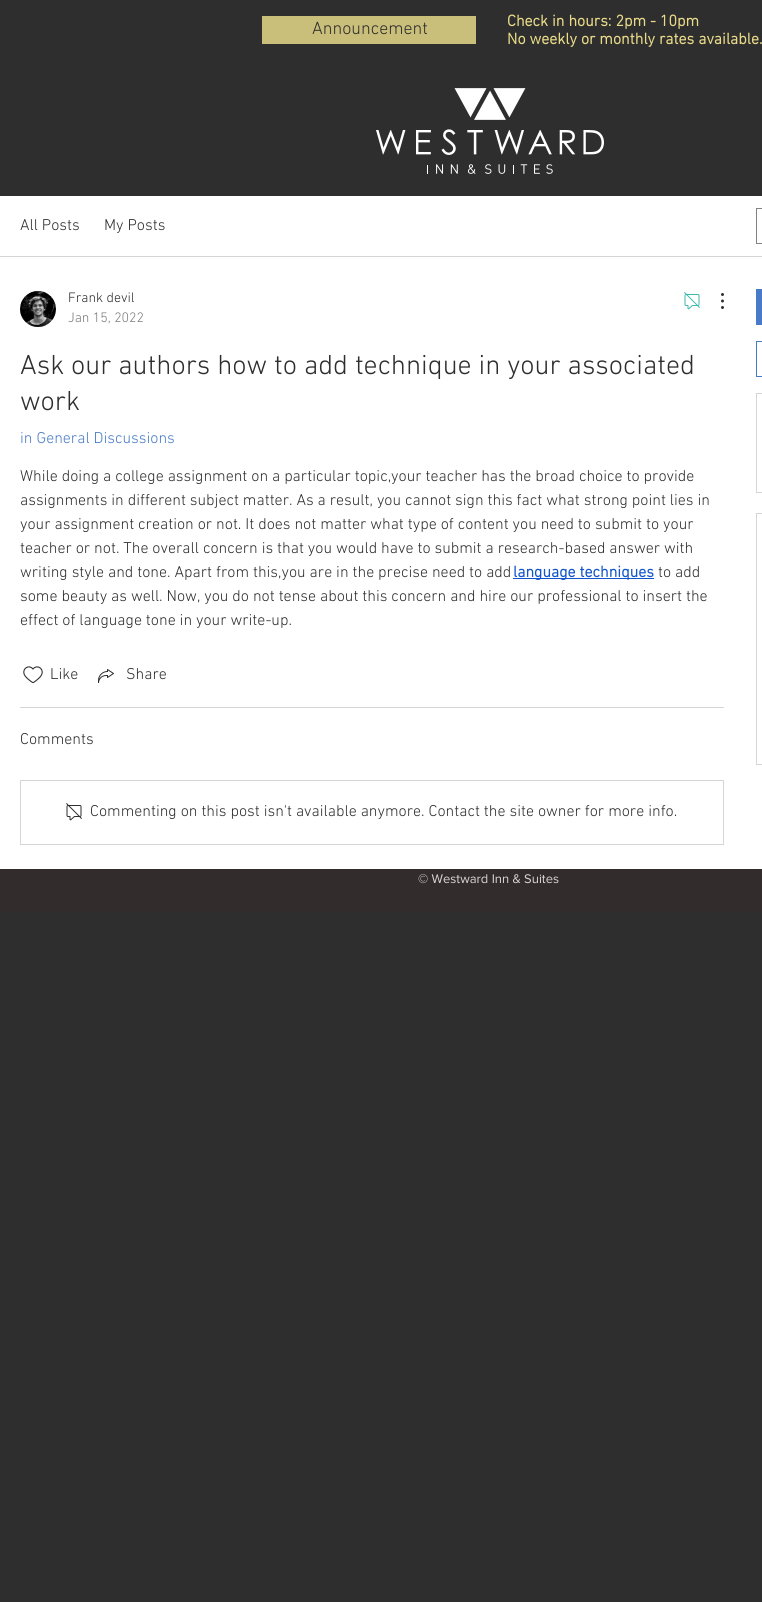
#include <cairo/cairo.h>
#include <math.h>
#include <stddef.h>


static void draw_image(cairo_t *cr, const char *path, double x, double y, double w, double h) {
  cairo_surface_t *image = cairo_image_surface_create_from_png(path);
  cairo_save(cr);
  cairo_set_source_surface(cr, image, x, y);
  cairo_rectangle(cr, x, y, w, h);
  cairo_fill(cr);
  cairo_restore(cr);
  cairo_surface_destroy(image);
}

static void draw(cairo_t *cr) {
  cairo_set_source_rgb(cr, 46 / 255.0, 46 / 255.0, 46 / 255.0);
  cairo_paint(cr);
  cairo_set_source_rgb(cr, 201 / 255.0, 190 / 255.0, 122 / 255.0);
  cairo_rectangle(cr, 262, 16, 214, 28);
  cairo_fill(cr);
  draw_image(cr, "images/1.png", 376, 88, 228, 86);
  cairo_set_source_rgb(cr, 1, 1, 1);
  cairo_rectangle(cr, 0, 196, 762, 673);
  cairo_fill(cr);
  cairo_set_source_rgb(cr, 213 / 255.0, 213 / 255.0, 213 / 255.0);
  cairo_rectangle(cr, 0, 256, 762, 1);
  cairo_fill(cr);
  cairo_rectangle(cr, 756.5, 208.5, 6, 35);
  cairo_set_source_rgb(cr, 130 / 255.0, 130 / 255.0, 130 / 255.0);
  cairo_set_line_width(cr, 1);
  cairo_stroke(cr);
  draw_image(cr, "images/2.png", 20, 291, 36, 36);
  draw_image(cr, "images/3.png", 684, 292, 16, 18);
  draw_image(cr, "images/4.png", 721, 293, 3, 16);
  cairo_set_source_rgb(cr, 17 / 255.0, 85 / 255.0, 204 / 255.0);
  cairo_rectangle(cr, 513, 578, 141, 1);
  cairo_fill(cr);
  draw_image(cr, "images/5.png", 23, 666, 20, 18);
  draw_image(cr, "images/6.png", 98, 669, 16, 14);
  cairo_set_source_rgb(cr, 213 / 255.0, 213 / 255.0, 213 / 255.0);
  cairo_rectangle(cr, 20, 707, 704, 1);
  cairo_fill(cr);
  cairo_rectangle(cr, 20.5, 780.5, 703, 64);
  cairo_stroke(cr);
  draw_image(cr, "images/7.png", 66, 803, 16, 18);
  cairo_set_source_rgb(cr, 72 / 255.0, 123 / 255.0, 199 / 255.0);
  cairo_rectangle(cr, 756, 289, 6, 36);
  cairo_fill(cr);
  cairo_rectangle(cr, 756.5, 341.5, 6, 35);
  cairo_stroke(cr);
  cairo_rectangle(cr, 756.5, 393.5, 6, 99);
  cairo_set_source_rgb(cr, 213 / 255.0, 213 / 255.0, 213 / 255.0);
  cairo_stroke(cr);
  cairo_rectangle(cr, 756.5, 513.5, 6, 251);
  cairo_stroke(cr);
  cairo_set_source_rgb(cr, 51 / 255.0, 44 / 255.0, 44 / 255.0);
  cairo_rectangle(cr, 0, 869, 762, 43);
  cairo_fill(cr);
  cairo_select_font_face(cr, "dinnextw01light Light", CAIRO_FONT_SLANT_NORMAL, CAIRO_FONT_WEIGHT_NORMAL);
  cairo_set_font_size(cr, 18);
  cairo_set_source_rgb(cr, 46 / 255.0, 46 / 255.0, 46 / 255.0);
  cairo_move_to(cr, 312, 34);
  cairo_show_text(cr, "Announcement");
  cairo_select_font_face(cr, "dinnextw01light", CAIRO_FONT_SLANT_NORMAL, CAIRO_FONT_WEIGHT_BOLD);
  cairo_set_font_size(cr, 16);
  cairo_set_source_rgb(cr, 233 / 255.0, 219 / 255.0, 137 / 255.0);
  cairo_move_to(cr, 507, 26);
  cairo_show_text(cr, "Check in hours: 2pm - 10pm");
  cairo_move_to(cr, 507, 44);
  cairo_show_text(cr, "No weekly or monthly rates available.");
  cairo_select_font_face(cr, "dinnextw01light Light", CAIRO_FONT_SLANT_NORMAL, CAIRO_FONT_WEIGHT_NORMAL);
  cairo_set_source_rgb(cr, 46 / 255.0, 46 / 255.0, 46 / 255.0);
  cairo_move_to(cr, 20, 230);
  cairo_show_text(cr, "All Posts");
  cairo_move_to(cr, 104, 230);
  cairo_show_text(cr, "My Posts");
  cairo_set_font_size(cr, 14);
  cairo_move_to(cr, 68, 302);
  cairo_show_text(cr, "Frank devil");
  cairo_set_source_rgb(cr, 121 / 255.0, 121 / 255.0, 121 / 255.0);
  cairo_move_to(cr, 68, 322);
  cairo_show_text(cr, "Jan 15, 2022");
  cairo_set_font_size(cr, 28);
  cairo_set_source_rgb(cr, 46 / 255.0, 46 / 255.0, 46 / 255.0);
  cairo_move_to(cr, 20, 374);
  cairo_show_text(cr, "Ask our authors how to add technique in your associated");
  cairo_move_to(cr, 20, 410);
  cairo_show_text(cr, "work");
  cairo_set_font_size(cr, 16);
  cairo_set_source_rgb(cr, 72 / 255.0, 123 / 255.0, 199 / 255.0);
  cairo_move_to(cr, 20, 443);
  cairo_show_text(cr, "in General Discussions");
  cairo_set_source_rgb(cr, 46 / 255.0, 46 / 255.0, 46 / 255.0);
  cairo_move_to(cr, 20, 481);
  cairo_show_text(cr, "While doing a college assignment on a particular topic,your teacher has the broad choice to provide");
  cairo_move_to(cr, 20, 505);
  cairo_show_text(cr, "assignments in different subject matter. As a result, you cannot sign this fact what strong point lies in");
  cairo_move_to(cr, 20, 529);
  cairo_show_text(cr, "your assignment creation or not. It does not matter what type of content you need to submit to your");
  cairo_move_to(cr, 20, 553);
  cairo_show_text(cr, "teacher or not. The overall concern is that you would have to submit a research-based answer with");
  cairo_move_to(cr, 20, 577);
  cairo_show_text(cr, "writing style and tone. Apart from this,you are in the precise need to add");
  cairo_select_font_face(cr, "dinnextw01light", CAIRO_FONT_SLANT_NORMAL, CAIRO_FONT_WEIGHT_BOLD);
  cairo_set_source_rgb(cr, 17 / 255.0, 85 / 255.0, 204 / 255.0);
  cairo_move_to(cr, 513, 577);
  cairo_show_text(cr, "language techniques");
  cairo_select_font_face(cr, "dinnextw01light Light", CAIRO_FONT_SLANT_NORMAL, CAIRO_FONT_WEIGHT_NORMAL);
  cairo_set_source_rgb(cr, 46 / 255.0, 46 / 255.0, 46 / 255.0);
  cairo_move_to(cr, 658, 577);
  cairo_show_text(cr, "to add");
  cairo_move_to(cr, 20, 601);
  cairo_show_text(cr, "some beauty as well. Now, you do not tense about this concern and hire our professional to insert the");
  cairo_move_to(cr, 20, 625);
  cairo_show_text(cr, "effect of language tone in your write-up.");
  cairo_move_to(cr, 50, 679);
  cairo_show_text(cr, "Like");
  cairo_move_to(cr, 126, 679);
  cairo_show_text(cr, "Share");
  cairo_move_to(cr, 20, 744);
  cairo_show_text(cr, "Comments");
  cairo_move_to(cr, 90, 816);
  cairo_show_text(cr, "Commenting on this post isn't available anymore. Contact the site owner for more info.");
  cairo_select_font_face(cr, "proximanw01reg", CAIRO_FONT_SLANT_NORMAL, CAIRO_FONT_WEIGHT_NORMAL);
  cairo_set_font_size(cr, 13);
  cairo_set_source_rgb(cr, 219 / 255.0, 215 / 255.0, 215 / 255.0);
  cairo_move_to(cr, 418, 883);
  cairo_show_text(cr, "© Westward Inn & Suites");
}

int main(void) {
  cairo_surface_t *surface = cairo_image_surface_create(CAIRO_FORMAT_RGB24, 762, 1602);
  cairo_t *cr = cairo_create(surface);
  cairo_font_options_t *options = cairo_font_options_create();
  cairo_font_options_set_hint_metrics(options, CAIRO_HINT_METRICS_OFF);
  cairo_font_options_set_hint_style(options, CAIRO_HINT_STYLE_NONE);
  cairo_set_font_options(cr, options);
  cairo_set_miter_limit(cr, 4);
  draw(cr);
  cairo_surface_write_to_png(surface, "out.png");
  cairo_font_options_destroy(options);
  cairo_destroy(cr);
  cairo_surface_destroy(surface);
  return 0;
}
